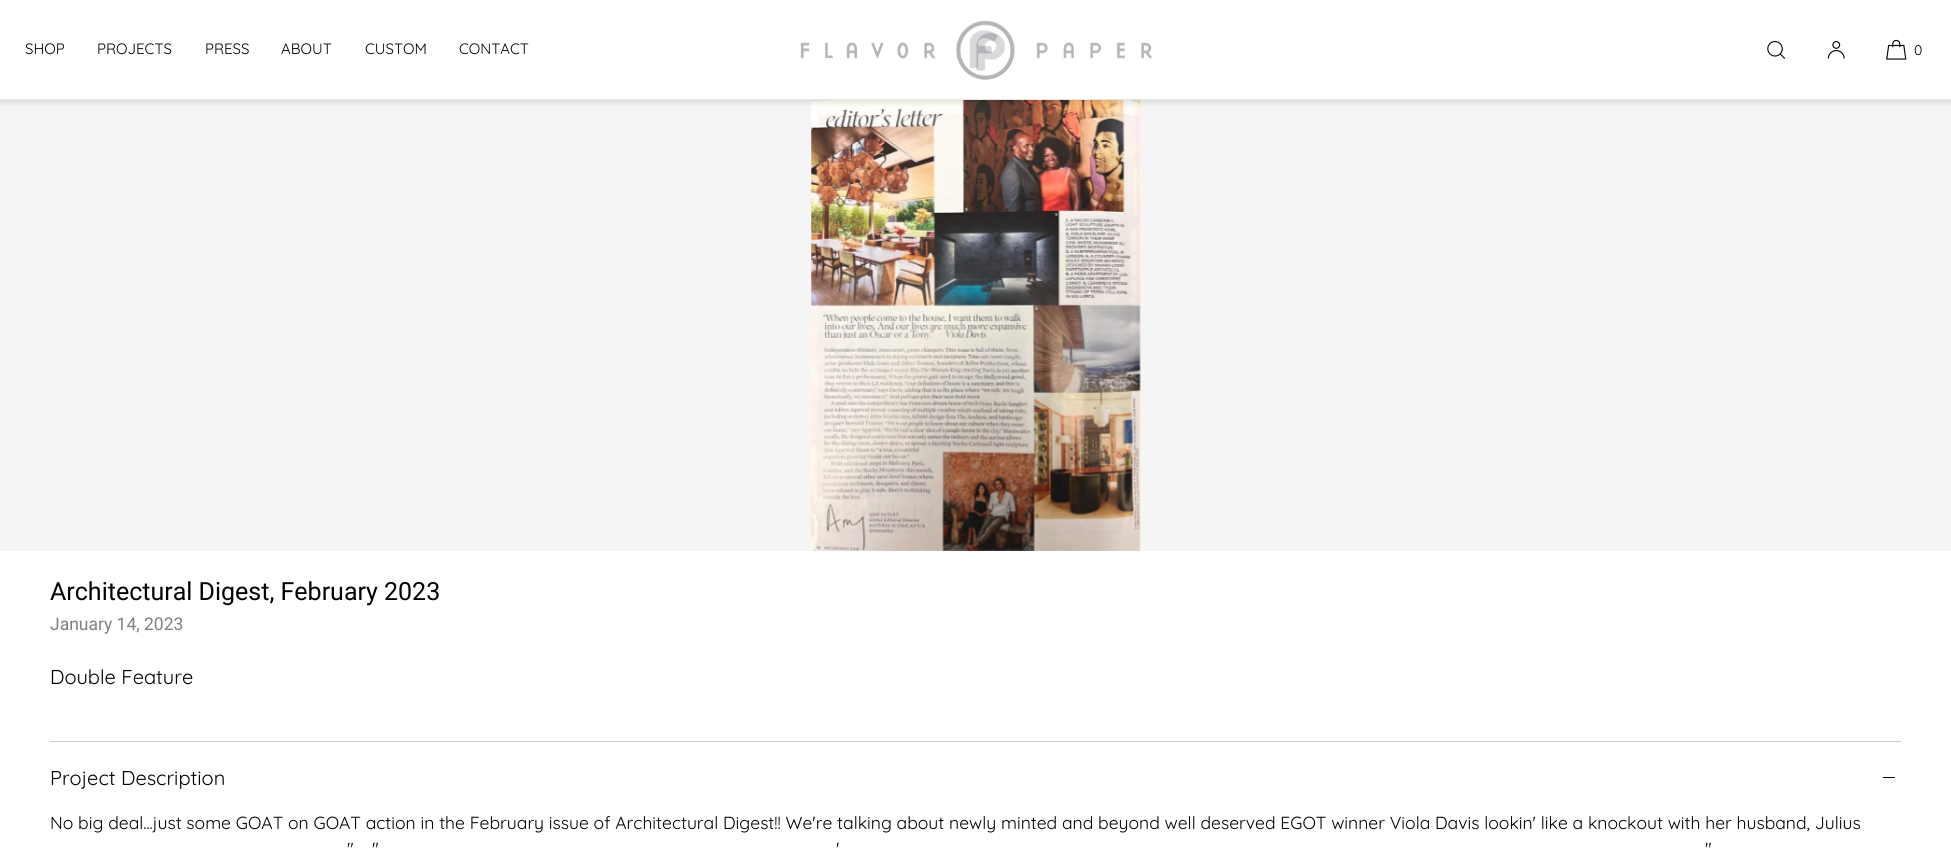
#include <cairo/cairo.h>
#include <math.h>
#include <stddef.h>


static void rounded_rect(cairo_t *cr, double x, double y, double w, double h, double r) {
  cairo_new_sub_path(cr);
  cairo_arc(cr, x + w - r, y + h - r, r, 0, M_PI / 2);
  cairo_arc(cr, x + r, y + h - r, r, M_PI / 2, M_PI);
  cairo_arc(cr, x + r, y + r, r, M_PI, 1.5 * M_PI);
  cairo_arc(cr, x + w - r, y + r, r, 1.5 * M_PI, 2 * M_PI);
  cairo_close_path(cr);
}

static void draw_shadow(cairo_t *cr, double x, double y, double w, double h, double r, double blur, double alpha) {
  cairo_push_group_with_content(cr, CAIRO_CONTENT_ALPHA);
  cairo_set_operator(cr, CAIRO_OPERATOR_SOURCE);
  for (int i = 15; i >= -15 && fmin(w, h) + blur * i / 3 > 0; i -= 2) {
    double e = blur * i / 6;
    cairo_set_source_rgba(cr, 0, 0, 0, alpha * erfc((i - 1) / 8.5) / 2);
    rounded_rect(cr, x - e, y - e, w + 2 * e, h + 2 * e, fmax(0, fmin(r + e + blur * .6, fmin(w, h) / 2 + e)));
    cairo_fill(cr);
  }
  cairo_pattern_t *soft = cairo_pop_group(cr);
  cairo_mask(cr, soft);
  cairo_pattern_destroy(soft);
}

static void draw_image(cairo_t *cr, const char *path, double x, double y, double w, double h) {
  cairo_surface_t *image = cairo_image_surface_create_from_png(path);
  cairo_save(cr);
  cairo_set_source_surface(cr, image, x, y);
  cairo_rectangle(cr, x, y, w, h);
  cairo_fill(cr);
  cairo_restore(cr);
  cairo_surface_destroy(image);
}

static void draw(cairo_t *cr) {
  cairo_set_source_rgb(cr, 1, 1, 1);
  cairo_paint(cr);
  cairo_set_source_rgb(cr, 245 / 255.0, 245 / 255.0, 245 / 255.0);
  cairo_rectangle(cr, 0, 100, 1951, 451);
  cairo_fill(cr);
  draw_image(cr, "images/5.png", 811, 100, 330, 451);
  cairo_save(cr);
  cairo_rectangle(cr, 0, 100, 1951, 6);
  cairo_clip(cr);
  cairo_set_source_rgb(cr, 0, 0, 0);
  draw_shadow(cr, 0, 0, 1951, 100, 0, 5, 0.2);
  cairo_restore(cr);
  cairo_set_source_rgb(cr, 230 / 255.0, 230 / 255.0, 230 / 255.0);
  cairo_rectangle(cr, 0, 99, 1951, 1);
  cairo_fill(cr);
  draw_image(cr, "images/1.png", 800, 20, 352, 60);
  draw_image(cr, "images/2.png", 1767, 41, 19, 18);
  draw_image(cr, "images/3.png", 1827, 41, 18, 18);
  draw_image(cr, "images/4.png", 1886, 39, 21, 21);
  cairo_set_source_rgb(cr, 204 / 255.0, 204 / 255.0, 204 / 255.0);
  cairo_rectangle(cr, 50, 741, 1851, 1);
  cairo_fill(cr);
  cairo_set_source_rgb(cr, 0, 0, 0);
  cairo_rectangle(cr, 1883, 777, 12, 1);
  cairo_fill(cr);
  cairo_select_font_face(cr, "Quicksand", CAIRO_FONT_SLANT_NORMAL, CAIRO_FONT_WEIGHT_NORMAL);
  cairo_set_font_size(cr, 15);
  cairo_move_to(cr, 25, 54);
  cairo_show_text(cr, "SHOP");
  cairo_move_to(cr, 97, 54);
  cairo_show_text(cr, "PROJECTS");
  cairo_move_to(cr, 205, 54);
  cairo_show_text(cr, "PRESS");
  cairo_move_to(cr, 281, 54);
  cairo_show_text(cr, "ABOUT");
  cairo_move_to(cr, 365, 54);
  cairo_show_text(cr, "CUSTOM");
  cairo_move_to(cr, 459, 54);
  cairo_show_text(cr, "CONTACT");
  cairo_set_font_size(cr, 14);
  cairo_move_to(cr, 1914, 55);
  cairo_show_text(cr, "0");
  cairo_select_font_face(cr, "Roboto", CAIRO_FONT_SLANT_NORMAL, CAIRO_FONT_WEIGHT_NORMAL);
  cairo_set_font_size(cr, 25);
  cairo_move_to(cr, 50, 600);
  cairo_show_text(cr, "Architectural Digest, February 2023");
  cairo_set_font_size(cr, 17.5);
  cairo_set_source_rgb(cr, 128 / 255.0, 128 / 255.0, 128 / 255.0);
  cairo_move_to(cr, 50, 630);
  cairo_show_text(cr, "January 14, 2023");
  cairo_select_font_face(cr, "Quicksand", CAIRO_FONT_SLANT_NORMAL, CAIRO_FONT_WEIGHT_NORMAL);
  cairo_set_font_size(cr, 20);
  cairo_set_source_rgb(cr, 0, 0, 0);
  cairo_move_to(cr, 50, 684);
  cairo_show_text(cr, "Double Feature");
  cairo_move_to(cr, 50, 785);
  cairo_show_text(cr, "Project Description");
  cairo_set_font_size(cr, 17.5);
  cairo_move_to(cr, 50, 829);
  cairo_show_text(cr, "No big deal...just some GOAT on GOAT action in the February issue of Architectural Digest!! We're talking about newly minted and beyond well deserved EGOT winner Viola Davis lookin' like a knockout with her husband, Julius");
  cairo_move_to(cr, 347, 855);
  cairo_show_text(cr, "\"");
  cairo_move_to(cr, 372, 855);
  cairo_show_text(cr, "\"");
  cairo_move_to(cr, 836, 855);
  cairo_show_text(cr, "'");
  cairo_move_to(cr, 1705, 855);
  cairo_show_text(cr, "\"");
}

int main(void) {
  cairo_surface_t *surface = cairo_image_surface_create(CAIRO_FORMAT_RGB24, 1951, 848);
  cairo_t *cr = cairo_create(surface);
  cairo_font_options_t *options = cairo_font_options_create();
  cairo_font_options_set_hint_metrics(options, CAIRO_HINT_METRICS_OFF);
  cairo_font_options_set_hint_style(options, CAIRO_HINT_STYLE_NONE);
  cairo_set_font_options(cr, options);
  cairo_set_miter_limit(cr, 4);
  draw(cr);
  cairo_surface_write_to_png(surface, "out.png");
  cairo_font_options_destroy(options);
  cairo_destroy(cr);
  cairo_surface_destroy(surface);
  return 0;
}
